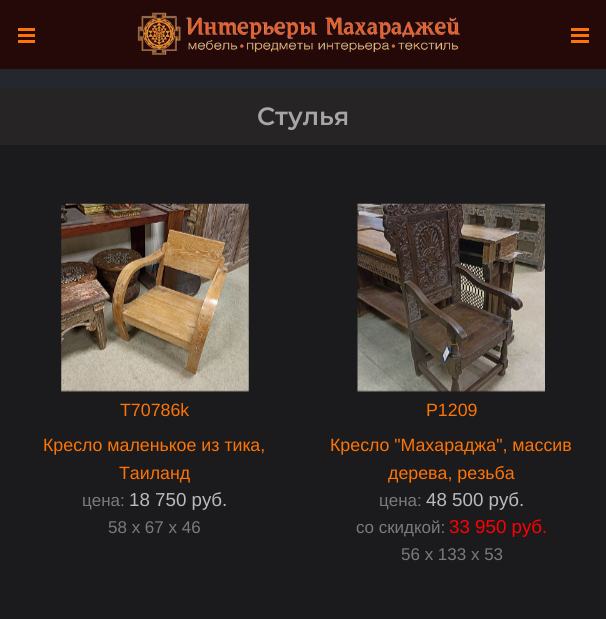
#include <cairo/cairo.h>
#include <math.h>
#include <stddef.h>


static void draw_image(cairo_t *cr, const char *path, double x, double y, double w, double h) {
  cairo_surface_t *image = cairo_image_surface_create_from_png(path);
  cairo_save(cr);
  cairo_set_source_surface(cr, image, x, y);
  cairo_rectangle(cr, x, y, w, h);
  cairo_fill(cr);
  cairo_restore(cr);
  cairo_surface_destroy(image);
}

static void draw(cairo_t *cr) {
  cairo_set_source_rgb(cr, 37 / 255.0, 39 / 255.0, 46 / 255.0);
  cairo_paint(cr);
  cairo_set_source_rgb(cr, 37 / 255.0, 8 / 255.0, 8 / 255.0);
  cairo_rectangle(cr, 0, 0, 606, 69);
  cairo_fill(cr);
  cairo_set_source_rgb(cr, 252 / 255.0, 115 / 255.0, 6 / 255.0);
  cairo_rectangle(cr, 18, 40, 17, 3);
  cairo_fill(cr);
  cairo_rectangle(cr, 18, 34, 17, 3);
  cairo_fill(cr);
  cairo_rectangle(cr, 18, 28, 17, 3);
  cairo_fill(cr);
  draw_image(cr, "images/1.png", 137, 12, 324, 43);
  cairo_rectangle(cr, 571, 40, 18, 3);
  cairo_fill(cr);
  cairo_rectangle(cr, 571, 34, 18, 3);
  cairo_fill(cr);
  cairo_rectangle(cr, 571, 28, 18, 3);
  cairo_fill(cr);
  cairo_set_source_rgb(cr, 27 / 255.0, 27 / 255.0, 29 / 255.0);
  cairo_rectangle(cr, 0, 145, 606, 474);
  cairo_fill(cr);
  cairo_set_source_rgb(cr, 38 / 255.0, 36 / 255.0, 37 / 255.0);
  cairo_rectangle(cr, 0, 89, 606, 56);
  cairo_fill(cr);
  draw_image(cr, "images/2.png", 61, 203, 188, 189);
  draw_image(cr, "images/3.png", 357, 203, 188, 189);
  cairo_select_font_face(cr, "Montserrat SemiBold", CAIRO_FONT_SLANT_NORMAL, CAIRO_FONT_WEIGHT_NORMAL);
  cairo_set_font_size(cr, 25);
  cairo_set_source_rgb(cr, 167 / 255.0, 165 / 255.0, 166 / 255.0);
  cairo_move_to(cr, 257, 125);
  cairo_show_text(cr, "Стулья");
  cairo_select_font_face(cr, "Liberation Sans", CAIRO_FONT_SLANT_NORMAL, CAIRO_FONT_WEIGHT_NORMAL);
  cairo_set_font_size(cr, 17.8);
  cairo_set_source_rgb(cr, 252 / 255.0, 115 / 255.0, 6 / 255.0);
  cairo_move_to(cr, 120, 416);
  cairo_show_text(cr, "T70786k");
  cairo_move_to(cr, 43, 451);
  cairo_show_text(cr, "Кресло маленькое из тика,");
  cairo_move_to(cr, 119, 479);
  cairo_show_text(cr, "Таиланд");
  cairo_set_font_size(cr, 17);
  cairo_set_source_rgb(cr, 122 / 255.0, 122 / 255.0, 124 / 255.0);
  cairo_move_to(cr, 82, 506);
  cairo_show_text(cr, "цена:");
  cairo_set_font_size(cr, 18.75);
  cairo_set_source_rgb(cr, 186 / 255.0, 186 / 255.0, 186 / 255.0);
  cairo_move_to(cr, 129, 506);
  cairo_show_text(cr, "18 750 руб.");
  cairo_set_font_size(cr, 17);
  cairo_set_source_rgb(cr, 122 / 255.0, 122 / 255.0, 124 / 255.0);
  cairo_move_to(cr, 108, 533);
  cairo_show_text(cr, "58 x 67 x 46");
  cairo_set_font_size(cr, 17.8);
  cairo_set_source_rgb(cr, 252 / 255.0, 115 / 255.0, 6 / 255.0);
  cairo_move_to(cr, 426, 416);
  cairo_show_text(cr, "P1209");
  cairo_move_to(cr, 330, 451);
  cairo_show_text(cr, "Кресло \"Махараджа\", массив");
  cairo_move_to(cr, 388, 479);
  cairo_show_text(cr, "дерева, резьба");
  cairo_set_font_size(cr, 17);
  cairo_set_source_rgb(cr, 122 / 255.0, 122 / 255.0, 124 / 255.0);
  cairo_move_to(cr, 379, 506);
  cairo_show_text(cr, "цена:");
  cairo_set_font_size(cr, 18.75);
  cairo_set_source_rgb(cr, 186 / 255.0, 186 / 255.0, 186 / 255.0);
  cairo_move_to(cr, 426, 506);
  cairo_show_text(cr, "48 500 руб.");
  cairo_set_font_size(cr, 17);
  cairo_set_source_rgb(cr, 122 / 255.0, 122 / 255.0, 124 / 255.0);
  cairo_move_to(cr, 356, 533);
  cairo_show_text(cr, "со скидкой:");
  cairo_set_font_size(cr, 18.75);
  cairo_set_source_rgb(cr, 1, 0, 0);
  cairo_move_to(cr, 449, 533);
  cairo_show_text(cr, "33 950 руб.");
  cairo_set_font_size(cr, 17);
  cairo_set_source_rgb(cr, 122 / 255.0, 122 / 255.0, 124 / 255.0);
  cairo_move_to(cr, 401, 560);
  cairo_show_text(cr, "56 x 133 x 53");
}

int main(void) {
  cairo_surface_t *surface = cairo_image_surface_create(CAIRO_FORMAT_RGB24, 606, 619);
  cairo_t *cr = cairo_create(surface);
  cairo_font_options_t *options = cairo_font_options_create();
  cairo_font_options_set_hint_metrics(options, CAIRO_HINT_METRICS_OFF);
  cairo_font_options_set_hint_style(options, CAIRO_HINT_STYLE_NONE);
  cairo_set_font_options(cr, options);
  cairo_set_miter_limit(cr, 4);
  draw(cr);
  cairo_surface_write_to_png(surface, "out.png");
  cairo_font_options_destroy(options);
  cairo_destroy(cr);
  cairo_surface_destroy(surface);
  return 0;
}
